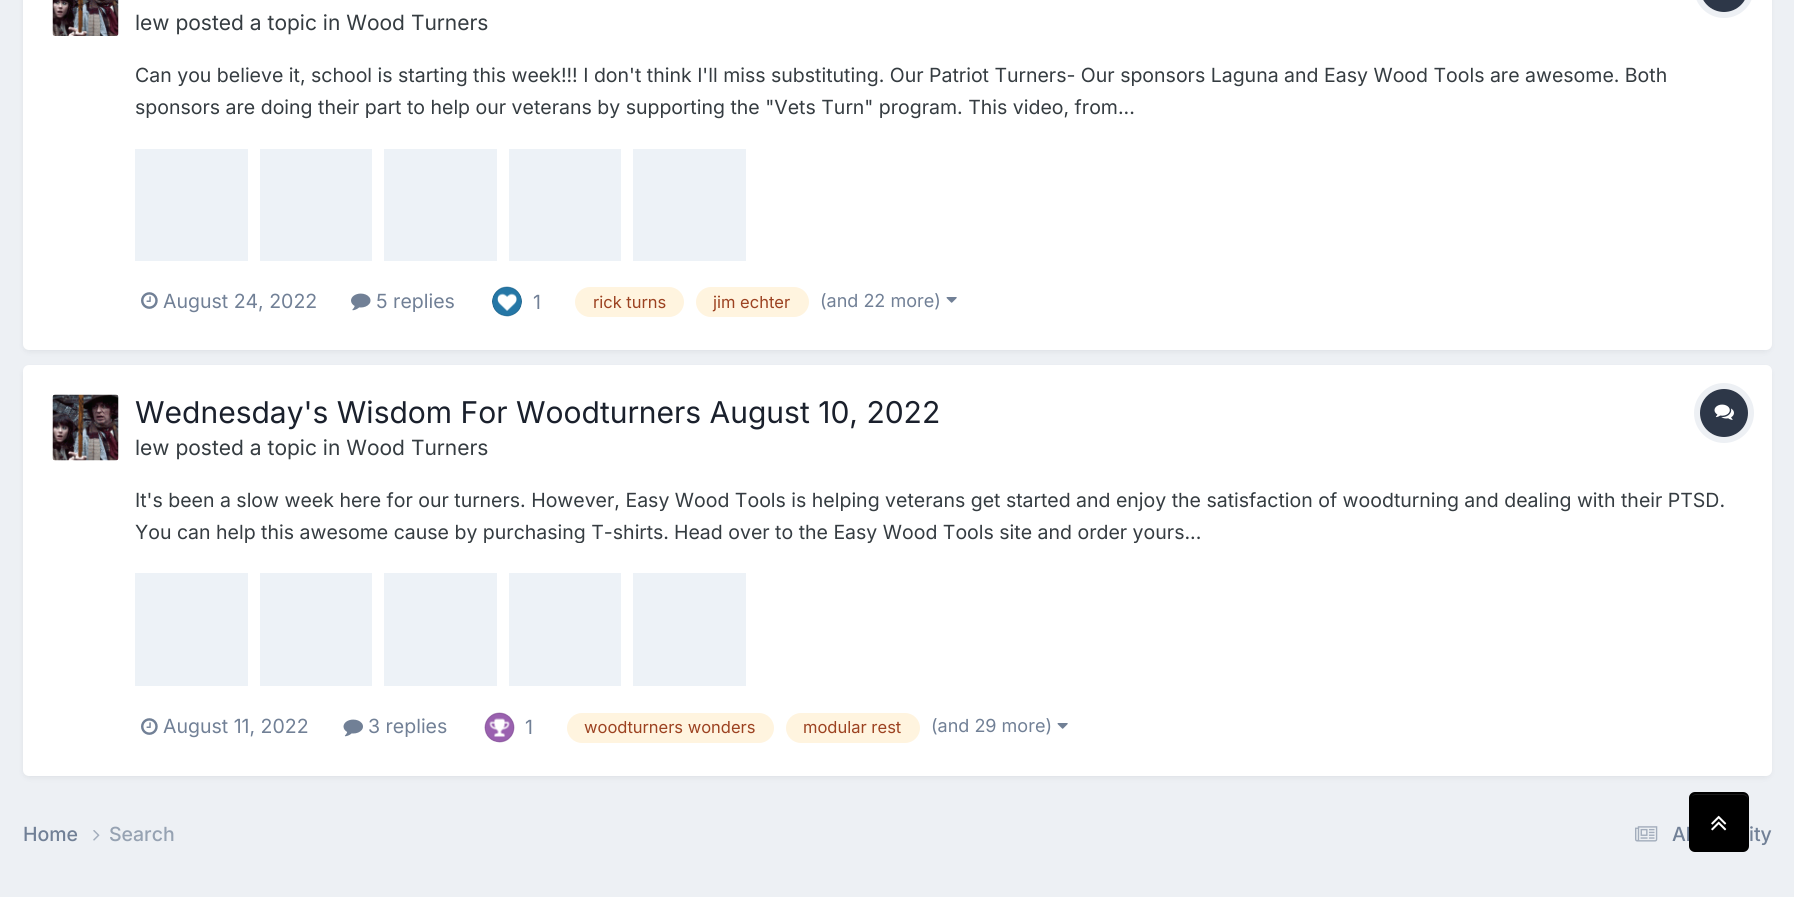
#include <cairo/cairo.h>
#include <math.h>
#include <stddef.h>


static void rounded_rect(cairo_t *cr, double x, double y, double w, double h, double r) {
  cairo_new_sub_path(cr);
  cairo_arc(cr, x + w - r, y + h - r, r, 0, M_PI / 2);
  cairo_arc(cr, x + r, y + h - r, r, M_PI / 2, M_PI);
  cairo_arc(cr, x + r, y + r, r, M_PI, 1.5 * M_PI);
  cairo_arc(cr, x + w - r, y + r, r, 1.5 * M_PI, 2 * M_PI);
  cairo_close_path(cr);
}

static void draw_shadow(cairo_t *cr, double x, double y, double w, double h, double r, double blur, double alpha) {
  cairo_push_group_with_content(cr, CAIRO_CONTENT_ALPHA);
  cairo_set_operator(cr, CAIRO_OPERATOR_SOURCE);
  for (int i = 15; i >= -15 && fmin(w, h) + blur * i / 3 > 0; i -= 2) {
    double e = blur * i / 6;
    cairo_set_source_rgba(cr, 0, 0, 0, alpha * erfc((i - 1) / 8.5) / 2);
    rounded_rect(cr, x - e, y - e, w + 2 * e, h + 2 * e, fmax(0, fmin(r + e + blur * .6, fmin(w, h) / 2 + e)));
    cairo_fill(cr);
  }
  cairo_pattern_t *soft = cairo_pop_group(cr);
  cairo_mask(cr, soft);
  cairo_pattern_destroy(soft);
}

static void draw_image(cairo_t *cr, const char *path, double x, double y, double w, double h) {
  cairo_surface_t *image = cairo_image_surface_create_from_png(path);
  cairo_save(cr);
  cairo_set_source_surface(cr, image, x, y);
  cairo_rectangle(cr, x, y, w, h);
  cairo_fill(cr);
  cairo_restore(cr);
  cairo_surface_destroy(image);
}

static void draw(cairo_t *cr) {
  cairo_set_source_rgb(cr, 237 / 255.0, 240 / 255.0, 244 / 255.0);
  cairo_paint(cr);
  cairo_set_source_rgb(cr, 45 / 255.0, 55 / 255.0, 72 / 255.0);
  draw_shadow(cr, 24, -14, 1746, 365, 5, 3, 0.1);
  cairo_set_source_rgb(cr, 1, 1, 1);
  rounded_rect(cr, 23, -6, 1749, 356, 6);
  cairo_fill(cr);
  draw_image(cr, "images/1.png", 52, 0, 67, 36);
  rounded_rect(cr, 1697, -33, 54, 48, 27);
  cairo_set_source_rgb(cr, 237 / 255.0, 240 / 255.0, 244 / 255.0);
  cairo_set_line_width(cr, 6);
  cairo_stroke(cr);
  cairo_set_source_rgb(cr, 45 / 255.0, 55 / 255.0, 72 / 255.0);
  rounded_rect(cr, 1700, -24, 48, 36, 24);
  cairo_fill(cr);
  cairo_set_source_rgb(cr, 237 / 255.0, 242 / 255.0, 247 / 255.0);
  cairo_rectangle(cr, 135, 149, 113, 112);
  cairo_fill(cr);
  cairo_rectangle(cr, 260, 149, 112, 112);
  cairo_fill(cr);
  cairo_rectangle(cr, 384, 149, 113, 112);
  cairo_fill(cr);
  cairo_rectangle(cr, 509, 149, 112, 112);
  cairo_fill(cr);
  cairo_rectangle(cr, 633, 149, 113, 112);
  cairo_fill(cr);
  draw_image(cr, "images/2.png", 141, 292, 17, 17);
  draw_image(cr, "images/3.png", 351, 293, 20, 18);
  draw_image(cr, "images/4.png", 492, 286, 30, 31);
  cairo_set_source_rgb(cr, 1, 244 / 255.0, 223 / 255.0);
  rounded_rect(cr, 575, 287, 109, 30, 15);
  cairo_fill(cr);
  rounded_rect(cr, 696, 287, 113, 30, 15);
  cairo_fill(cr);
  draw_image(cr, "images/5.png", 946, 297, 11, 6);
  cairo_set_source_rgb(cr, 45 / 255.0, 55 / 255.0, 72 / 255.0);
  draw_shadow(cr, 24, 369, 1746, 408, 5, 3, 0.1);
  cairo_set_source_rgb(cr, 1, 1, 1);
  rounded_rect(cr, 23, 365, 1749, 411, 6);
  cairo_fill(cr);
  draw_image(cr, "images/6.png", 52, 394, 67, 67);
  cairo_arc(cr, 1724, 413, 27, 0, 2 * M_PI);
  cairo_set_source_rgb(cr, 237 / 255.0, 240 / 255.0, 244 / 255.0);
  cairo_stroke(cr);
  cairo_set_source_rgb(cr, 45 / 255.0, 55 / 255.0, 72 / 255.0);
  cairo_arc(cr, 1724, 413, 24, 0, 2 * M_PI);
  cairo_fill(cr);
  draw_image(cr, "images/7.png", 1714, 404, 20, 16);
  cairo_set_source_rgb(cr, 237 / 255.0, 242 / 255.0, 247 / 255.0);
  cairo_rectangle(cr, 135, 573, 113, 113);
  cairo_fill(cr);
  cairo_rectangle(cr, 260, 573, 112, 113);
  cairo_fill(cr);
  cairo_rectangle(cr, 384, 573, 113, 113);
  cairo_fill(cr);
  cairo_rectangle(cr, 509, 573, 112, 113);
  cairo_fill(cr);
  cairo_rectangle(cr, 633, 573, 113, 113);
  cairo_fill(cr);
  draw_image(cr, "images/2.png", 141, 718, 17, 17);
  draw_image(cr, "images/8.png", 343, 719, 20, 18);
  draw_image(cr, "images/9.png", 484, 712, 31, 31);
  cairo_set_source_rgb(cr, 1, 244 / 255.0, 223 / 255.0);
  rounded_rect(cr, 567, 713, 207, 30, 15);
  cairo_fill(cr);
  rounded_rect(cr, 786, 713, 134, 30, 15);
  cairo_fill(cr);
  draw_image(cr, "images/5.png", 1057, 723, 11, 6);
  draw_image(cr, "images/10.png", 93, 830, 7, 11);
  draw_image(cr, "images/11.png", 1635, 826, 23, 16);
  cairo_select_font_face(cr, "Inter", CAIRO_FONT_SLANT_NORMAL, CAIRO_FONT_WEIGHT_NORMAL);
  cairo_set_font_size(cr, 21);
  cairo_set_source_rgb(cr, 53 / 255.0, 60 / 255.0, 65 / 255.0);
  cairo_move_to(cr, 135, 30);
  cairo_show_text(cr, "lew posted a topic in Wood Turners");
  cairo_set_font_size(cr, 19.5);
  cairo_move_to(cr, 135, 82);
  cairo_show_text(cr, "Can you believe it, school is starting this week!!! I don't think I'll miss substituting. Our Patriot Turners- Our sponsors Laguna and Easy Wood Tools are awesome. Both");
  cairo_move_to(cr, 135, 114);
  cairo_show_text(cr, "sponsors are doing their part to help our veterans by supporting the \"Vets Turn\" program. This video, from...");
  cairo_set_source_rgb(cr, 113 / 255.0, 128 / 255.0, 150 / 255.0);
  cairo_move_to(cr, 163, 308);
  cairo_show_text(cr, "August 24, 2022");
  cairo_move_to(cr, 376, 308);
  cairo_show_text(cr, "5 replies");
  cairo_move_to(cr, 533, 309);
  cairo_show_text(cr, "1");
  cairo_set_font_size(cr, 16.5);
  cairo_set_source_rgb(cr, 156 / 255.0, 66 / 255.0, 33 / 255.0);
  cairo_move_to(cr, 593, 308);
  cairo_show_text(cr, "rick turns");
  cairo_move_to(cr, 713, 308);
  cairo_show_text(cr, "jim echter");
  cairo_set_font_size(cr, 18);
  cairo_set_source_rgb(cr, 113 / 255.0, 128 / 255.0, 150 / 255.0);
  cairo_move_to(cr, 820, 307);
  cairo_show_text(cr, "(and 22 more)");
  cairo_set_font_size(cr, 30);
  cairo_set_source_rgb(cr, 26 / 255.0, 32 / 255.0, 44 / 255.0);
  cairo_move_to(cr, 135, 423);
  cairo_show_text(cr, "Wednesday's Wisdom For Woodturners August 10, 2022");
  cairo_set_font_size(cr, 21);
  cairo_set_source_rgb(cr, 53 / 255.0, 60 / 255.0, 65 / 255.0);
  cairo_move_to(cr, 135, 455);
  cairo_show_text(cr, "lew posted a topic in Wood Turners");
  cairo_set_font_size(cr, 19.5);
  cairo_move_to(cr, 135, 507);
  cairo_show_text(cr, "It's been a slow week here for our turners. However, Easy Wood Tools is helping veterans get started and enjoy the satisfaction of woodturning and dealing with their PTSD.");
  cairo_save(cr);
  cairo_rectangle(cr, 135, 485, 1607, 58);
  cairo_clip(cr);
  cairo_move_to(cr, 135, 539);
  cairo_show_text(cr, "You can help this awesome cause by purchasing T-shirts.");
  cairo_restore(cr);
  cairo_move_to(cr, 674, 539);
  cairo_show_text(cr, "Head over to the Easy Wood Tools site and order yours...");
  cairo_set_source_rgb(cr, 113 / 255.0, 128 / 255.0, 150 / 255.0);
  cairo_move_to(cr, 163, 733);
  cairo_show_text(cr, "August 11, 2022");
  cairo_move_to(cr, 368, 733);
  cairo_show_text(cr, "3 replies");
  cairo_move_to(cr, 525, 734);
  cairo_show_text(cr, "1");
  cairo_set_font_size(cr, 16.5);
  cairo_set_source_rgb(cr, 156 / 255.0, 66 / 255.0, 33 / 255.0);
  cairo_move_to(cr, 584, 733);
  cairo_show_text(cr, "woodturners wonders");
  cairo_move_to(cr, 803, 733);
  cairo_show_text(cr, "modular rest");
  cairo_set_font_size(cr, 18);
  cairo_set_source_rgb(cr, 113 / 255.0, 128 / 255.0, 150 / 255.0);
  cairo_move_to(cr, 931, 732);
  cairo_show_text(cr, "(and 29 more)");
  cairo_select_font_face(cr, "Inter Medium", CAIRO_FONT_SLANT_NORMAL, CAIRO_FONT_WEIGHT_NORMAL);
  cairo_set_font_size(cr, 19.5);
  cairo_move_to(cr, 23, 841);
  cairo_show_text(cr, "Home");
  cairo_set_source_rgb(cr, 150 / 255.0, 162 / 255.0, 178 / 255.0);
  cairo_move_to(cr, 109, 841);
  cairo_show_text(cr, "Search");
  cairo_set_source_rgb(cr, 113 / 255.0, 128 / 255.0, 150 / 255.0);
  cairo_move_to(cr, 1672, 841);
  cairo_show_text(cr, "Al");
  cairo_move_to(cr, 1749, 841);
  cairo_show_text(cr, "ity");
  cairo_set_source_rgb(cr, 0, 0, 0);
  rounded_rect(cr, 1689, 792, 60, 60, 6);
  cairo_fill(cr);
  cairo_set_source_rgb(cr, 26 / 255.0, 26 / 255.0, 26 / 255.0);
  cairo_new_path(cr);
  cairo_move_to(cr, 1695, 795);
  cairo_line_to(cr, 1743, 795);
  cairo_curve_to(cr, 1745, 795, 1748, 797, 1748, 800);
  cairo_line_to(cr, 1748, 799);
  cairo_curve_to(cr, 1748, 796, 1746, 794, 1743, 794);
  cairo_line_to(cr, 1696, 794);
  cairo_curve_to(cr, 1694, 794, 1693, 795, 1692, 796);
  cairo_close_path(cr);
  cairo_fill(cr);
  rounded_rect(cr, 1690, 793, 58, 58, 5);
  cairo_set_source_rgba(cr, 0, 0, 0, 0.1);
  cairo_set_line_width(cr, 2);
  cairo_stroke(cr);
  draw_image(cr, "images/12.png", 1711, 815, 16, 16);
}

int main(void) {
  cairo_surface_t *surface = cairo_image_surface_create(CAIRO_FORMAT_RGB24, 1794, 897);
  cairo_t *cr = cairo_create(surface);
  cairo_font_options_t *options = cairo_font_options_create();
  cairo_font_options_set_hint_metrics(options, CAIRO_HINT_METRICS_OFF);
  cairo_font_options_set_hint_style(options, CAIRO_HINT_STYLE_NONE);
  cairo_set_font_options(cr, options);
  cairo_set_miter_limit(cr, 4);
  draw(cr);
  cairo_surface_write_to_png(surface, "out.png");
  cairo_font_options_destroy(options);
  cairo_destroy(cr);
  cairo_surface_destroy(surface);
  return 0;
}
